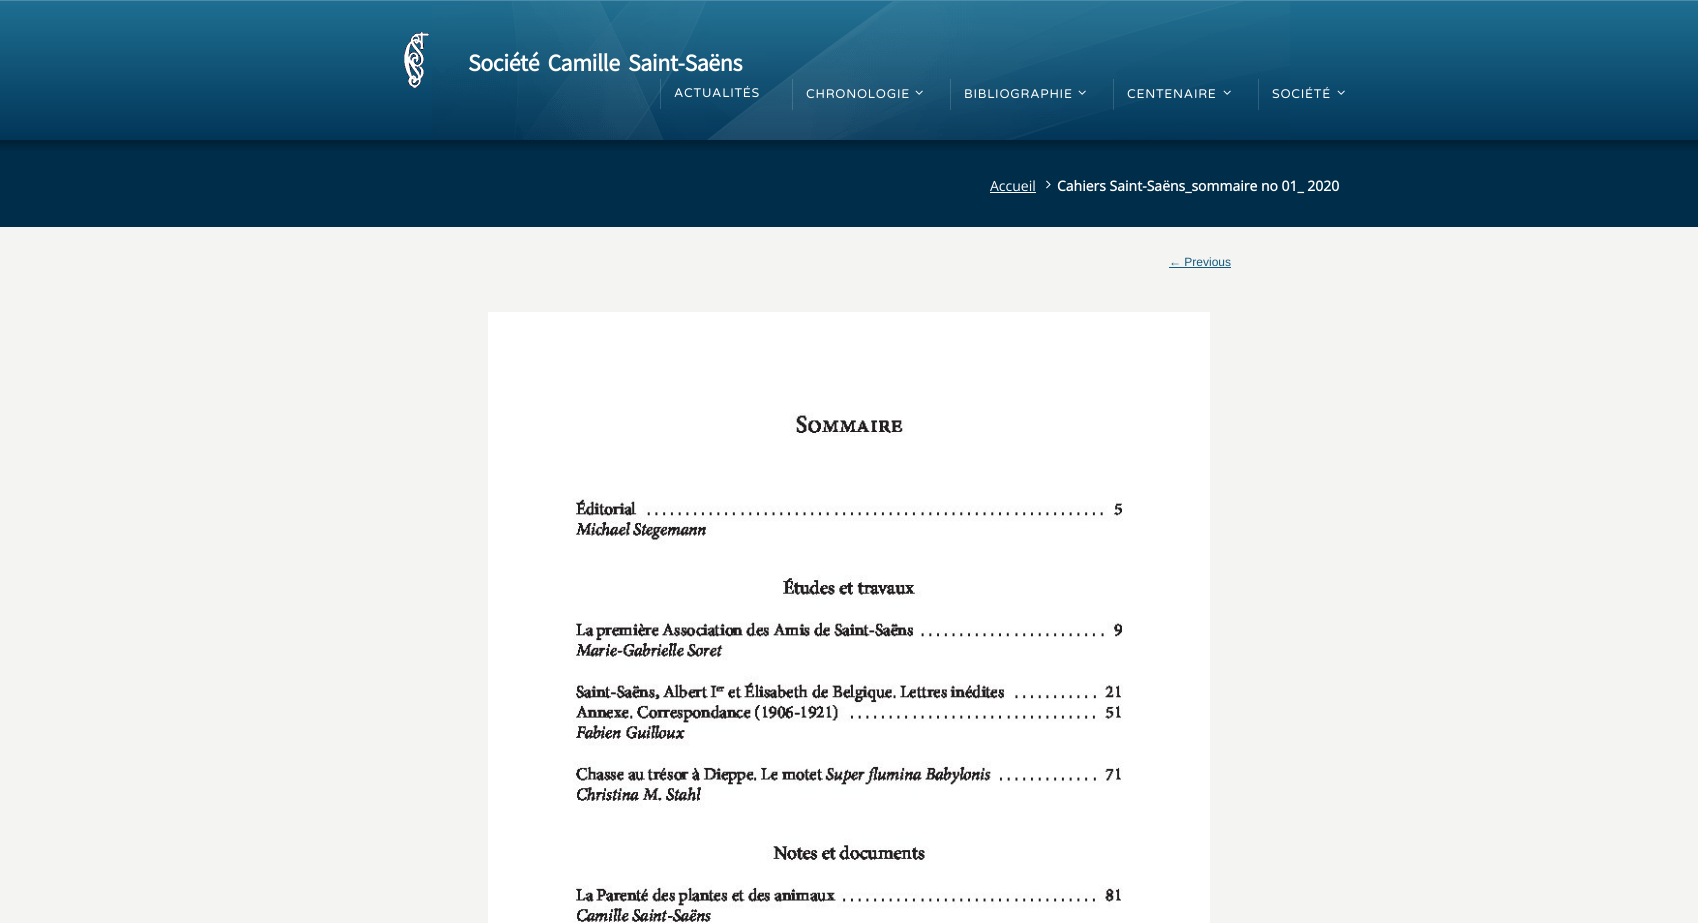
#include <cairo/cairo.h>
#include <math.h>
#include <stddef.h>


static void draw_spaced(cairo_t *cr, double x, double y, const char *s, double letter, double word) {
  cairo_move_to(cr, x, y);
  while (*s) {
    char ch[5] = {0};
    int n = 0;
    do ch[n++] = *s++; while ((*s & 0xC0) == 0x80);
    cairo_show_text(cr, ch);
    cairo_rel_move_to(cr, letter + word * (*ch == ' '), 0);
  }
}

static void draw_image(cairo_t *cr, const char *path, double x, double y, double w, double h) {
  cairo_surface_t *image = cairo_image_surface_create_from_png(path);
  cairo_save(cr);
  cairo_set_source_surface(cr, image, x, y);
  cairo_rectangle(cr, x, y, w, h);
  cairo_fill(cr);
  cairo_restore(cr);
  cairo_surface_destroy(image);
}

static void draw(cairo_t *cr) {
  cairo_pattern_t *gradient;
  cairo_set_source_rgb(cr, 244 / 255.0, 244 / 255.0, 242 / 255.0);
  cairo_paint(cr);
  gradient = cairo_pattern_create_linear(849, 1, 849, 140);
  cairo_pattern_add_color_stop_rgba(gradient, 0, 30 / 255.0, 111 / 255.0, 146 / 255.0, 1);
  cairo_pattern_add_color_stop_rgba(gradient, 1, 1 / 255.0, 53 / 255.0, 88 / 255.0, 1);
  cairo_set_source(cr, gradient);
  cairo_pattern_destroy(gradient);
  cairo_rectangle(cr, 0, 1, 1698, 139);
  cairo_fill(cr);
  gradient = cairo_pattern_create_linear(849, 1, 849, 140);
  cairo_pattern_add_color_stop_rgba(gradient, 0, 64 / 255.0, 133 / 255.0, 162 / 255.0, 1);
  cairo_pattern_add_color_stop_rgba(gradient, 1, 39 / 255.0, 83 / 255.0, 113 / 255.0, 1);
  cairo_set_source(cr, gradient);
  cairo_pattern_destroy(gradient);
  cairo_rectangle(cr, 1258, 79, 1, 31);
  cairo_fill(cr);
  cairo_set_source_rgb(cr, 75 / 255.0, 140 / 255.0, 168 / 255.0);
  cairo_rectangle(cr, 0, 0, 1698, 1);
  cairo_fill(cr);
  draw_image(cr, "images/1.png", 432, 1, 858, 139);
  draw_image(cr, "images/2.png", 404, 32, 25, 56);
  cairo_set_source_rgba(cr, 1, 1, 1, 0.15);
  cairo_rectangle(cr, 660, 79, 1, 30);
  cairo_fill(cr);
  cairo_rectangle(cr, 792, 79, 1, 31);
  cairo_fill(cr);
  draw_image(cr, "images/3.png", 915, 90, 8, 5);
  cairo_rectangle(cr, 950, 79, 1, 31);
  cairo_fill(cr);
  draw_image(cr, "images/4.png", 1078, 90, 8, 5);
  cairo_rectangle(cr, 1113, 79, 1, 31);
  cairo_fill(cr);
  draw_image(cr, "images/5.png", 1223, 90, 8, 5);
  draw_image(cr, "images/6.png", 1337, 90, 8, 5);
  cairo_set_source_rgb(cr, 0, 45 / 255.0, 74 / 255.0);
  cairo_rectangle(cr, 0, 140, 1698, 87);
  cairo_fill(cr);
  draw_image(cr, "images/7.png", 0, 140, 1698, 11);
  cairo_set_source_rgb(cr, 1, 1, 1);
  cairo_rectangle(cr, 990, 192, 46, 1);
  cairo_fill(cr);
  draw_image(cr, "images/8.png", 1046, 180, 5, 9);
  cairo_set_source_rgb(cr, 19 / 255.0, 90 / 255.0, 125 / 255.0);
  cairo_rectangle(cr, 1169, 267, 62, 1);
  cairo_fill(cr);
  draw_image(cr, "images/9.png", 488, 312, 722, 611);
  cairo_select_font_face(cr, "Source Sans Pro", CAIRO_FONT_SLANT_NORMAL, CAIRO_FONT_WEIGHT_BOLD);
  cairo_set_font_size(cr, 24);
  cairo_set_source_rgb(cr, 1, 1, 1);
  draw_spaced(cr, 468, 71, "Société Camille Saint-Saëns", -0.5, 4);
  cairo_select_font_face(cr, "Varela Round", CAIRO_FONT_SLANT_NORMAL, CAIRO_FONT_WEIGHT_NORMAL);
  cairo_set_font_size(cr, 12.5);
  draw_spaced(cr, 674, 97, "ACTUALITÉS", 0.75, 0);
  draw_spaced(cr, 806, 98, "CHRONOLOGIE", 0.75, 0);
  draw_spaced(cr, 964, 98, "BIBLIOGRAPHIE", 0.75, 0);
  draw_spaced(cr, 1127, 98, "CENTENAIRE", 0.75, 0);
  draw_spaced(cr, 1272, 98, "SOCIÉTÉ", 0.75, 0);
  cairo_select_font_face(cr, "Open Sans", CAIRO_FONT_SLANT_NORMAL, CAIRO_FONT_WEIGHT_NORMAL);
  cairo_set_font_size(cr, 14);
  cairo_move_to(cr, 990, 191);
  cairo_show_text(cr, "Accueil");
  cairo_select_font_face(cr, "Open Sans", CAIRO_FONT_SLANT_NORMAL, CAIRO_FONT_WEIGHT_BOLD);
  cairo_move_to(cr, 1057, 191);
  cairo_show_text(cr, "Cahiers Saint-Saëns_sommaire no 01_ 2020");
  cairo_select_font_face(cr, "Liberation Sans", CAIRO_FONT_SLANT_NORMAL, CAIRO_FONT_WEIGHT_NORMAL);
  cairo_set_font_size(cr, 12);
  cairo_set_source_rgb(cr, 19 / 255.0, 90 / 255.0, 125 / 255.0);
  cairo_move_to(cr, 1169, 266);
  cairo_show_text(cr, "← Previous");
}

int main(void) {
  cairo_surface_t *surface = cairo_image_surface_create(CAIRO_FORMAT_RGB24, 1698, 923);
  cairo_t *cr = cairo_create(surface);
  cairo_font_options_t *options = cairo_font_options_create();
  cairo_font_options_set_hint_metrics(options, CAIRO_HINT_METRICS_OFF);
  cairo_font_options_set_hint_style(options, CAIRO_HINT_STYLE_NONE);
  cairo_set_font_options(cr, options);
  cairo_set_miter_limit(cr, 4);
  draw(cr);
  cairo_surface_write_to_png(surface, "out.png");
  cairo_font_options_destroy(options);
  cairo_destroy(cr);
  cairo_surface_destroy(surface);
  return 0;
}
